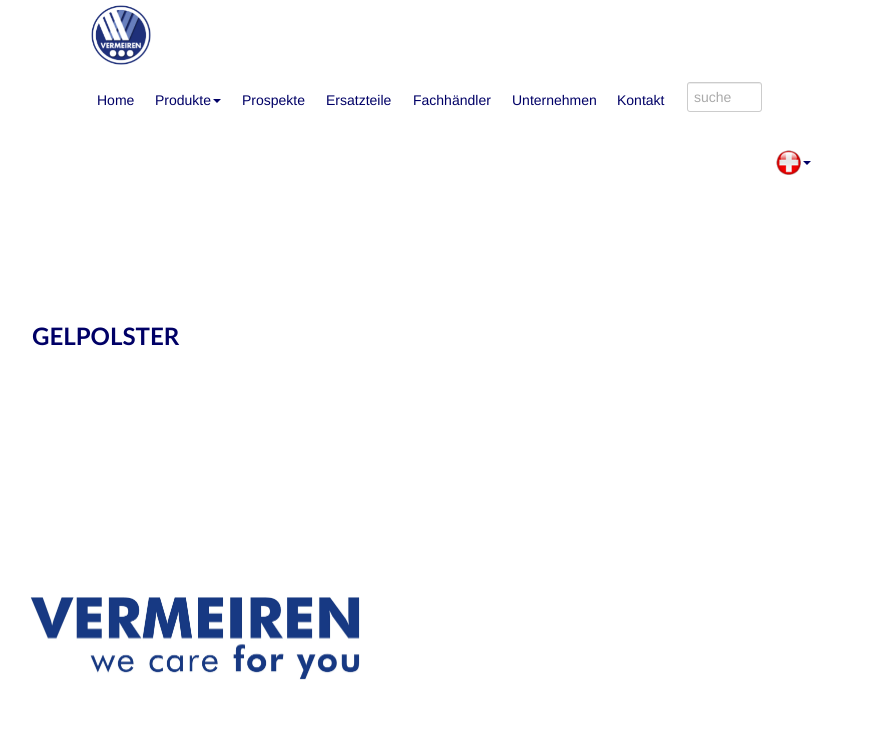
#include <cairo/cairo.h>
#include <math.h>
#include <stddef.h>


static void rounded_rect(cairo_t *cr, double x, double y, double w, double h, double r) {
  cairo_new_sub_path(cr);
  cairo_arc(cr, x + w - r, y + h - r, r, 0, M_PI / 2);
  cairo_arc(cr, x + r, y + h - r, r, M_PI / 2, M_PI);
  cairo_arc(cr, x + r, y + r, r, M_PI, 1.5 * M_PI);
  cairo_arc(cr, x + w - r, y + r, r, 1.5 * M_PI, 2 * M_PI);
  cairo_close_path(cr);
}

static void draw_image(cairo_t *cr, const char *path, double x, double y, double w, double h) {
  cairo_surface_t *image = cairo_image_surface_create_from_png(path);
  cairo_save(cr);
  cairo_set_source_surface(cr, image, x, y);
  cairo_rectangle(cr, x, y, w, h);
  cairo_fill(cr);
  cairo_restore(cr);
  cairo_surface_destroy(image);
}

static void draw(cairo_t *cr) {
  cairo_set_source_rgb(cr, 1, 1, 1);
  cairo_paint(cr);
  draw_image(cr, "images/1.png", 91, 5, 60, 60);
  cairo_set_source_rgb(cr, 0, 0, 102 / 255.0);
  cairo_new_path(cr);
  cairo_move_to(cr, 213, 99);
  cairo_line_to(cr, 221, 99);
  cairo_line_to(cr, 217, 103);
  cairo_close_path(cr);
  cairo_fill(cr);
  cairo_set_source_rgb(cr, 236 / 255.0, 236 / 255.0, 236 / 255.0);
  cairo_new_path(cr);
  cairo_move_to(cr, 690, 84);
  cairo_line_to(cr, 759, 84);
  cairo_curve_to(cr, 760, 84, 761, 85, 761, 86);
  cairo_curve_to(cr, 761, 80, 751, 83, 748, 83);
  cairo_line_to(cr, 702, 83);
  cairo_curve_to(cr, 698, 83, 688, 80, 688, 86);
  cairo_curve_to(cr, 688, 85, 689, 84, 690, 84);
  cairo_close_path(cr);
  cairo_fill(cr);
  rounded_rect(cr, 687.5, 82.5, 74, 29, 2.5);
  cairo_set_source_rgb(cr, 204 / 255.0, 204 / 255.0, 204 / 255.0);
  cairo_set_line_width(cr, 1);
  cairo_stroke(cr);
  draw_image(cr, "images/2.png", 776, 150, 25, 25);
  cairo_set_source_rgb(cr, 0, 0, 102 / 255.0);
  cairo_new_path(cr);
  cairo_move_to(cr, 803, 161);
  cairo_line_to(cr, 811, 161);
  cairo_line_to(cr, 807, 165);
  cairo_close_path(cr);
  cairo_fill(cr);
  draw_image(cr, "images/3.png", 30, 597, 330, 83);
  cairo_select_font_face(cr, "Liberation Sans", CAIRO_FONT_SLANT_NORMAL, CAIRO_FONT_WEIGHT_NORMAL);
  cairo_set_font_size(cr, 14);
  cairo_move_to(cr, 97, 105);
  cairo_show_text(cr, "Home");
  cairo_move_to(cr, 155, 105);
  cairo_show_text(cr, "Produkte");
  cairo_move_to(cr, 242, 105);
  cairo_show_text(cr, "Prospekte");
  cairo_move_to(cr, 326, 105);
  cairo_show_text(cr, "Ersatzteile");
  cairo_move_to(cr, 413, 105);
  cairo_show_text(cr, "Fachhändler");
  cairo_move_to(cr, 512, 105);
  cairo_show_text(cr, "Unternehmen");
  cairo_move_to(cr, 617, 105);
  cairo_show_text(cr, "Kontakt");
  cairo_set_source_rgb(cr, 170 / 255.0, 170 / 255.0, 170 / 255.0);
  cairo_move_to(cr, 694, 102);
  cairo_show_text(cr, "suche");
  cairo_select_font_face(cr, "Lato", CAIRO_FONT_SLANT_NORMAL, CAIRO_FONT_WEIGHT_BOLD);
  cairo_set_font_size(cr, 24);
  cairo_set_source_rgb(cr, 0, 0, 102 / 255.0);
  cairo_move_to(cr, 32, 345);
  cairo_show_text(cr, "GELPOLSTER");
}

int main(void) {
  cairo_surface_t *surface = cairo_image_surface_create(CAIRO_FORMAT_RGB24, 892, 736);
  cairo_t *cr = cairo_create(surface);
  cairo_font_options_t *options = cairo_font_options_create();
  cairo_font_options_set_hint_metrics(options, CAIRO_HINT_METRICS_OFF);
  cairo_font_options_set_hint_style(options, CAIRO_HINT_STYLE_NONE);
  cairo_set_font_options(cr, options);
  cairo_set_miter_limit(cr, 4);
  draw(cr);
  cairo_surface_write_to_png(surface, "out.png");
  cairo_font_options_destroy(options);
  cairo_destroy(cr);
  cairo_surface_destroy(surface);
  return 0;
}
